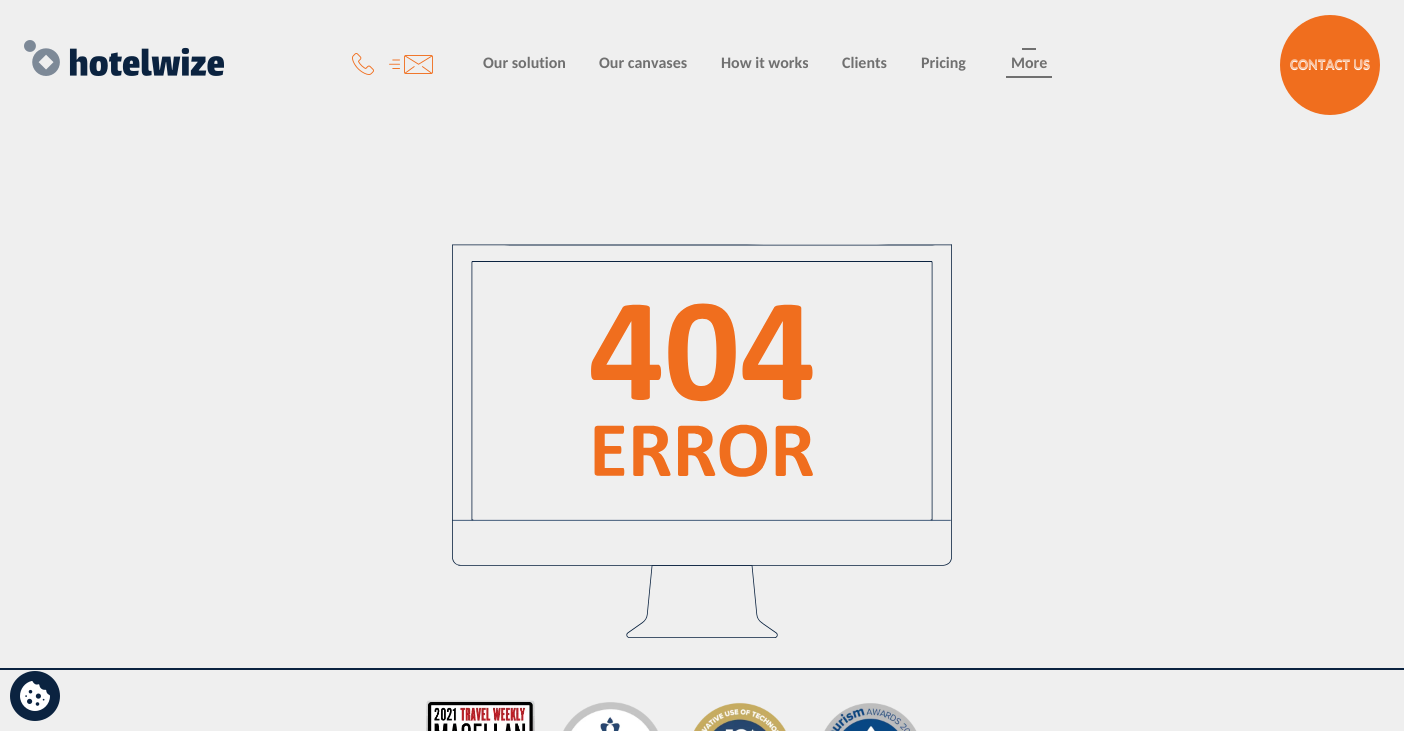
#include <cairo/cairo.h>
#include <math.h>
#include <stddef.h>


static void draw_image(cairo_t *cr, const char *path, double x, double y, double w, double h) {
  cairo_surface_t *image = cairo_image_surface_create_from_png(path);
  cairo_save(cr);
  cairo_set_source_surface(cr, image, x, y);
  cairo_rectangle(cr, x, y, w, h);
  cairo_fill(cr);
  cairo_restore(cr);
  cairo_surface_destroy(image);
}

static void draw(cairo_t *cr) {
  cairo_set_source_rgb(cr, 239 / 255.0, 239 / 255.0, 239 / 255.0);
  cairo_paint(cr);
  draw_image(cr, "images/1.png", 24, 40, 200, 36);
  draw_image(cr, "images/2.png", 352, 53, 22, 22);
  draw_image(cr, "images/3.png", 389, 55, 44, 19);
  cairo_set_source_rgb(cr, 112 / 255.0, 112 / 255.0, 112 / 255.0);
  cairo_rectangle(cr, 1022, 48, 14, 2);
  cairo_fill(cr);
  cairo_rectangle(cr, 1006, 76, 46, 2);
  cairo_fill(cr);
  cairo_set_source_rgb(cr, 240 / 255.0, 110 / 255.0, 30 / 255.0);
  cairo_arc(cr, 1330, 65, 50, 0, 2 * M_PI);
  cairo_fill(cr);
  cairo_set_source_rgb(cr, 11 / 255.0, 35 / 255.0, 64 / 255.0);
  cairo_rectangle(cr, 0, 668, 1404, 2);
  cairo_fill(cr);
  draw_image(cr, "images/4.png", 452, 244, 500, 394);
  cairo_arc(cr, 35, 696, 25, 0, 2 * M_PI);
  cairo_fill(cr);
  draw_image(cr, "images/5.png", 20, 681, 30, 30);
  draw_image(cr, "images/6.png", 426, 700, 109, 31);
  draw_image(cr, "images/7.png", 563, 702, 95, 29);
  draw_image(cr, "images/8.png", 694, 702, 92, 29);
  draw_image(cr, "images/9.png", 824, 703, 93, 28);
  cairo_select_font_face(cr, "Carlito", CAIRO_FONT_SLANT_NORMAL, CAIRO_FONT_WEIGHT_BOLD);
  cairo_set_font_size(cr, 16);
  cairo_set_source_rgb(cr, 112 / 255.0, 112 / 255.0, 112 / 255.0);
  cairo_move_to(cr, 483, 68);
  cairo_show_text(cr, "Our solution");
  cairo_move_to(cr, 599, 68);
  cairo_show_text(cr, "Our canvases");
  cairo_move_to(cr, 721, 68);
  cairo_show_text(cr, "How it works");
  cairo_move_to(cr, 842, 68);
  cairo_show_text(cr, "Clients");
  cairo_move_to(cr, 921, 68);
  cairo_show_text(cr, "Pricing");
  cairo_move_to(cr, 1011, 68);
  cairo_show_text(cr, "More");
  cairo_set_font_size(cr, 15);
  cairo_set_source_rgb(cr, 1, 1, 1);
  cairo_move_to(cr, 1290, 70);
  cairo_show_text(cr, "CONTACT US");
  cairo_set_source_rgb(cr, 248 / 255.0, 190 / 255.0, 154 / 255.0);
  cairo_move_to(cr, 1290, 69);
  cairo_show_text(cr, "CONTACT US");
}

int main(void) {
  cairo_surface_t *surface = cairo_image_surface_create(CAIRO_FORMAT_RGB24, 1404, 731);
  cairo_t *cr = cairo_create(surface);
  cairo_font_options_t *options = cairo_font_options_create();
  cairo_font_options_set_hint_metrics(options, CAIRO_HINT_METRICS_OFF);
  cairo_font_options_set_hint_style(options, CAIRO_HINT_STYLE_NONE);
  cairo_set_font_options(cr, options);
  cairo_set_miter_limit(cr, 4);
  draw(cr);
  cairo_surface_write_to_png(surface, "out.png");
  cairo_font_options_destroy(options);
  cairo_destroy(cr);
  cairo_surface_destroy(surface);
  return 0;
}
